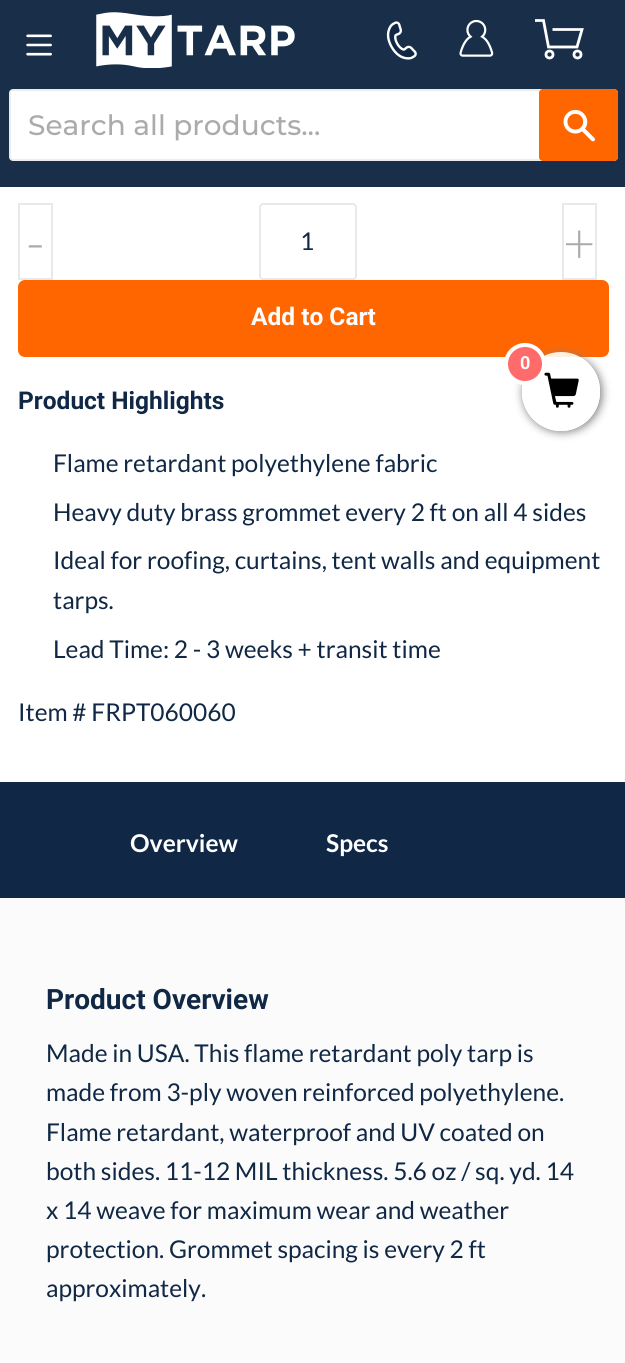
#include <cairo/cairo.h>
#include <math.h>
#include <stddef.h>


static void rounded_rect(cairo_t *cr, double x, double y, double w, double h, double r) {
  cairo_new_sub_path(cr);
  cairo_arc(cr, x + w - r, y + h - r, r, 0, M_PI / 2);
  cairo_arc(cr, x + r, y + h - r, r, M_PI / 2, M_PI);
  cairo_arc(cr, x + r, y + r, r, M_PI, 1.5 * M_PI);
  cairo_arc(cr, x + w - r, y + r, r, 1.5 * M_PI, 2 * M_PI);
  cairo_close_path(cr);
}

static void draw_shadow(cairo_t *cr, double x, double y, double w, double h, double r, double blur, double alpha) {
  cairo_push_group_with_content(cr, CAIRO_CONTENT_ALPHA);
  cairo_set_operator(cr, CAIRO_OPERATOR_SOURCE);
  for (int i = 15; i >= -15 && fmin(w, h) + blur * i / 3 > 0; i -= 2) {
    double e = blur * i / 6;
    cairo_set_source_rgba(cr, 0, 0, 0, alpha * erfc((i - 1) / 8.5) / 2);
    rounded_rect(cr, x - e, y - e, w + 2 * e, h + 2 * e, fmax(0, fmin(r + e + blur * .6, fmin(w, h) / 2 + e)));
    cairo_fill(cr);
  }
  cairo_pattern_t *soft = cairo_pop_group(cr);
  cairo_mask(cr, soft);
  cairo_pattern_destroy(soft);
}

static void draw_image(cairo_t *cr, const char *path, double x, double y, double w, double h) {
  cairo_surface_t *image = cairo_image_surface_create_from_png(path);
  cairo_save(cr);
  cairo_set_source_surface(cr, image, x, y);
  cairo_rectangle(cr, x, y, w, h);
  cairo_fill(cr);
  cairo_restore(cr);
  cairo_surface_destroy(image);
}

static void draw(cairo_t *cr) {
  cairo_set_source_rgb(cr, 1, 1, 1);
  cairo_paint(cr);
  cairo_set_source_rgb(cr, 24 / 255.0, 46 / 255.0, 73 / 255.0);
  cairo_rectangle(cr, 0, 0, 625, 187);
  cairo_fill(cr);
  draw_image(cr, "images/1.png", 26, 34, 26, 22);
  draw_image(cr, "images/2.png", 96, 12, 199, 56);
  draw_image(cr, "images/3.png", 386, 21, 31, 39);
  draw_image(cr, "images/4.png", 459, 19, 35, 38);
  cairo_new_path(cr);
  cairo_move_to(cr, 535, 20.5);
  cairo_line_to(cr, 543.5, 20.5);
  cairo_line_to(cr, 548.5, 47);
  cairo_line_to(cr, 577, 47);
  cairo_line_to(cr, 582, 29.5);
  cairo_line_to(cr, 552.5, 29.5);
  cairo_set_source_rgb(cr, 1, 1, 1);
  cairo_set_line_width(cr, 2.8);
  cairo_stroke(cr);
  cairo_arc(cr, 549.5, 54.5, 3.5, 0, 2 * M_PI);
  cairo_stroke(cr);
  cairo_arc(cr, 577.5, 54.5, 3.5, 0, 2 * M_PI);
  cairo_stroke(cr);
  rounded_rect(cr, 10, 90, 607, 70, 3);
  cairo_fill_preserve(cr);
  cairo_set_source_rgb(cr, 236 / 255.0, 236 / 255.0, 236 / 255.0);
  cairo_set_line_width(cr, 2);
  cairo_stroke(cr);
  cairo_set_source_rgb(cr, 1, 102 / 255.0, 0);
  rounded_rect(cr, 539, 89, 79, 72, 4);
  cairo_fill(cr);
  draw_image(cr, "images/5.png", 563, 109, 32, 33);
  cairo_rectangle(cr, 19, 204, 33, 75);
  cairo_set_source_rgb(cr, 233 / 255.0, 233 / 255.0, 233 / 255.0);
  cairo_stroke(cr);
  rounded_rect(cr, 260, 204, 96, 75, 3);
  cairo_stroke(cr);
  cairo_rectangle(cr, 563, 204, 33, 75);
  cairo_stroke(cr);
  cairo_set_source_rgb(cr, 1, 102 / 255.0, 0);
  rounded_rect(cr, 18, 280, 591, 77, 7);
  cairo_fill(cr);
  cairo_set_source_rgb(cr, 16 / 255.0, 40 / 255.0, 69 / 255.0);
  cairo_rectangle(cr, 0, 782, 625, 116);
  cairo_fill(cr);
  cairo_set_source_rgb(cr, 251 / 255.0, 251 / 255.0, 251 / 255.0);
  cairo_rectangle(cr, 0, 898, 625, 465);
  cairo_fill(cr);
  cairo_save(cr);
  cairo_set_fill_rule(cr, CAIRO_FILL_RULE_EVEN_ODD);
  cairo_new_path(cr);
  cairo_move_to(cr, 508, 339);
  cairo_line_to(cr, 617, 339);
  cairo_line_to(cr, 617, 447);
  cairo_line_to(cr, 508, 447);
  cairo_close_path(cr);
  cairo_move_to(cr, 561, 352);
  cairo_curve_to(cr, 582.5, 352, 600, 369.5, 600, 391);
  cairo_line_to(cr, 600, 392);
  cairo_curve_to(cr, 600, 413.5, 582.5, 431, 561, 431);
  cairo_curve_to(cr, 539.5, 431, 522, 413.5, 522, 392);
  cairo_line_to(cr, 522, 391);
  cairo_curve_to(cr, 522, 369.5, 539.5, 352, 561, 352);
  cairo_close_path(cr);
  cairo_clip(cr);
  cairo_set_source_rgb(cr, 128 / 255.0, 128 / 255.0, 128 / 255.0);
  draw_shadow(cr, 523, 354, 79, 78, 39, 4.5, 1);
  cairo_restore(cr);
  cairo_set_source_rgba(cr, 1, 1, 1, 0.9);
  rounded_rect(cr, 522, 352, 78, 79, 39);
  cairo_fill(cr);
  draw_image(cr, "images/6.png", 544, 372, 35, 36);
  cairo_set_source_rgb(cr, 1, 107 / 255.0, 107 / 255.0);
  cairo_arc(cr, 525, 364, 19, 0, 2 * M_PI);
  cairo_fill_preserve(cr);
  cairo_set_source_rgb(cr, 1, 1, 1);
  cairo_set_line_width(cr, 4);
  cairo_stroke(cr);
  cairo_select_font_face(cr, "Montserrat Medium", CAIRO_FONT_SLANT_NORMAL, CAIRO_FONT_WEIGHT_NORMAL);
  cairo_set_font_size(cr, 28);
  cairo_set_source_rgb(cr, 171 / 255.0, 171 / 255.0, 171 / 255.0);
  cairo_move_to(cr, 28, 135);
  cairo_show_text(cr, "Search all products...");
  cairo_select_font_face(cr, "Lato Light", CAIRO_FONT_SLANT_NORMAL, CAIRO_FONT_WEIGHT_NORMAL);
  cairo_set_font_size(cr, 56);
  cairo_move_to(cr, 26, 263);
  cairo_show_text(cr, "-");
  cairo_select_font_face(cr, "Lato", CAIRO_FONT_SLANT_NORMAL, CAIRO_FONT_WEIGHT_NORMAL);
  cairo_set_font_size(cr, 24.5);
  cairo_set_source_rgb(cr, 16 / 255.0, 40 / 255.0, 69 / 255.0);
  cairo_move_to(cr, 300, 250);
  cairo_show_text(cr, "1");
  cairo_select_font_face(cr, "Lato Light", CAIRO_FONT_SLANT_NORMAL, CAIRO_FONT_WEIGHT_NORMAL);
  cairo_set_font_size(cr, 56);
  cairo_set_source_rgb(cr, 171 / 255.0, 171 / 255.0, 171 / 255.0);
  cairo_move_to(cr, 563, 263);
  cairo_show_text(cr, "+");
  cairo_select_font_face(cr, "Roboto", CAIRO_FONT_SLANT_NORMAL, CAIRO_FONT_WEIGHT_BOLD);
  cairo_set_font_size(cr, 24.5);
  cairo_set_source_rgb(cr, 1, 1, 1);
  cairo_move_to(cr, 251, 325);
  cairo_show_text(cr, "Add to Cart");
  cairo_set_source_rgb(cr, 16 / 255.0, 40 / 255.0, 69 / 255.0);
  cairo_move_to(cr, 18, 409);
  cairo_show_text(cr, "Product Highlights");
  cairo_select_font_face(cr, "Lato", CAIRO_FONT_SLANT_NORMAL, CAIRO_FONT_WEIGHT_NORMAL);
  cairo_move_to(cr, 53, 472);
  cairo_show_text(cr, "Flame retardant polyethylene fabric");
  cairo_move_to(cr, 53, 521);
  cairo_show_text(cr, "Heavy duty brass grommet every 2 ft on all 4 sides");
  cairo_move_to(cr, 53, 569);
  cairo_show_text(cr, "Ideal for roofing, curtains, tent walls and equipment");
  cairo_move_to(cr, 53, 609);
  cairo_show_text(cr, "tarps.");
  cairo_move_to(cr, 53, 658);
  cairo_show_text(cr, "Lead Time: 2 - 3 weeks + transit time");
  cairo_move_to(cr, 18, 721);
  cairo_show_text(cr, "Item # FRPT060060");
  cairo_select_font_face(cr, "Lato", CAIRO_FONT_SLANT_NORMAL, CAIRO_FONT_WEIGHT_BOLD);
  cairo_set_source_rgb(cr, 1, 1, 1);
  cairo_move_to(cr, 130, 852);
  cairo_show_text(cr, "Overview");
  cairo_move_to(cr, 326, 852);
  cairo_show_text(cr, "Specs");
  cairo_select_font_face(cr, "Roboto", CAIRO_FONT_SLANT_NORMAL, CAIRO_FONT_WEIGHT_BOLD);
  cairo_set_font_size(cr, 28);
  cairo_set_source_rgb(cr, 16 / 255.0, 40 / 255.0, 69 / 255.0);
  cairo_move_to(cr, 46, 1009);
  cairo_show_text(cr, "Product Overview");
  cairo_select_font_face(cr, "Lato", CAIRO_FONT_SLANT_NORMAL, CAIRO_FONT_WEIGHT_NORMAL);
  cairo_set_font_size(cr, 24.5);
  cairo_move_to(cr, 46, 1062);
  cairo_show_text(cr, "Made in USA. This flame retardant poly tarp is");
  cairo_move_to(cr, 46, 1101);
  cairo_show_text(cr, "made from 3-ply woven reinforced polyethylene.");
  cairo_move_to(cr, 46, 1141);
  cairo_show_text(cr, "Flame retardant, waterproof and UV coated on");
  cairo_move_to(cr, 46, 1180);
  cairo_show_text(cr, "both sides. 11-12 MIL thickness. 5.6 oz / sq. yd. 14");
  cairo_move_to(cr, 46, 1219);
  cairo_show_text(cr, "x 14 weave for maximum wear and weather");
  cairo_move_to(cr, 46, 1258);
  cairo_show_text(cr, "protection. Grommet spacing is every 2 ft");
  cairo_move_to(cr, 46, 1297);
  cairo_show_text(cr, "approximately.");
  cairo_select_font_face(cr, "Roboto", CAIRO_FONT_SLANT_NORMAL, CAIRO_FONT_WEIGHT_BOLD);
  cairo_set_font_size(cr, 18);
  cairo_set_source_rgb(cr, 1, 1, 1);
  cairo_move_to(cr, 520, 369);
  cairo_show_text(cr, "0");
}

int main(void) {
  cairo_surface_t *surface = cairo_image_surface_create(CAIRO_FORMAT_RGB24, 625, 1363);
  cairo_t *cr = cairo_create(surface);
  cairo_font_options_t *options = cairo_font_options_create();
  cairo_font_options_set_hint_metrics(options, CAIRO_HINT_METRICS_OFF);
  cairo_font_options_set_hint_style(options, CAIRO_HINT_STYLE_NONE);
  cairo_set_font_options(cr, options);
  cairo_set_miter_limit(cr, 4);
  draw(cr);
  cairo_surface_write_to_png(surface, "out.png");
  cairo_font_options_destroy(options);
  cairo_destroy(cr);
  cairo_surface_destroy(surface);
  return 0;
}
